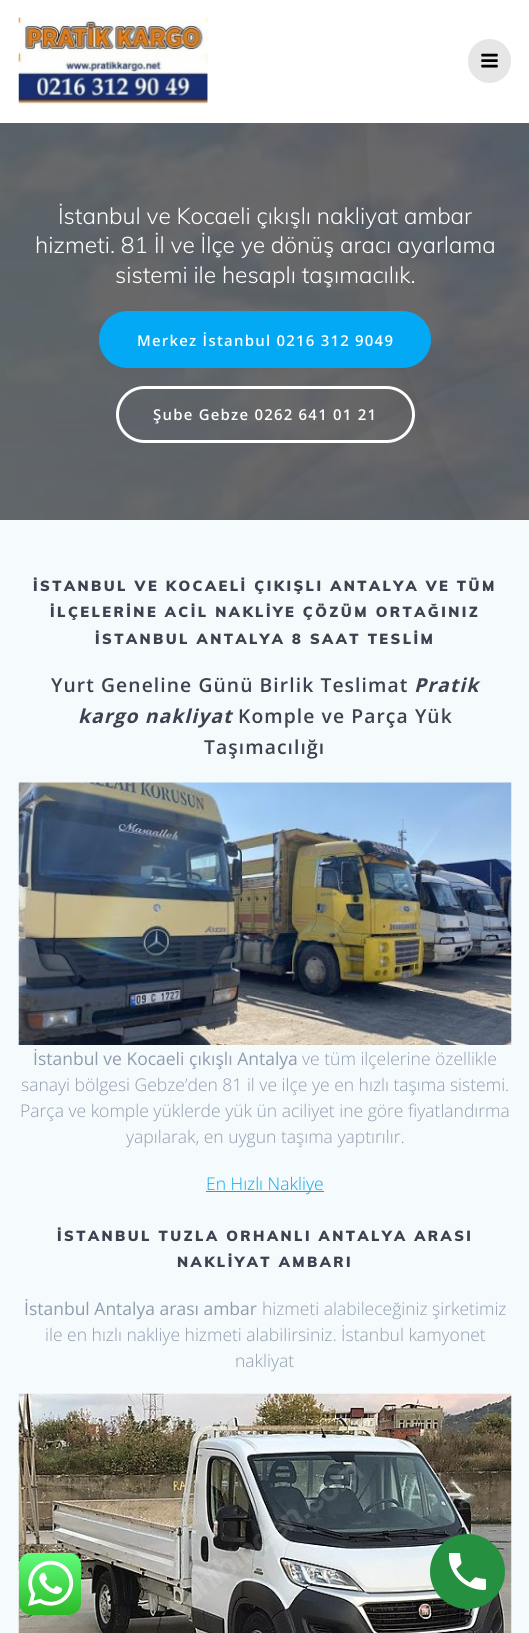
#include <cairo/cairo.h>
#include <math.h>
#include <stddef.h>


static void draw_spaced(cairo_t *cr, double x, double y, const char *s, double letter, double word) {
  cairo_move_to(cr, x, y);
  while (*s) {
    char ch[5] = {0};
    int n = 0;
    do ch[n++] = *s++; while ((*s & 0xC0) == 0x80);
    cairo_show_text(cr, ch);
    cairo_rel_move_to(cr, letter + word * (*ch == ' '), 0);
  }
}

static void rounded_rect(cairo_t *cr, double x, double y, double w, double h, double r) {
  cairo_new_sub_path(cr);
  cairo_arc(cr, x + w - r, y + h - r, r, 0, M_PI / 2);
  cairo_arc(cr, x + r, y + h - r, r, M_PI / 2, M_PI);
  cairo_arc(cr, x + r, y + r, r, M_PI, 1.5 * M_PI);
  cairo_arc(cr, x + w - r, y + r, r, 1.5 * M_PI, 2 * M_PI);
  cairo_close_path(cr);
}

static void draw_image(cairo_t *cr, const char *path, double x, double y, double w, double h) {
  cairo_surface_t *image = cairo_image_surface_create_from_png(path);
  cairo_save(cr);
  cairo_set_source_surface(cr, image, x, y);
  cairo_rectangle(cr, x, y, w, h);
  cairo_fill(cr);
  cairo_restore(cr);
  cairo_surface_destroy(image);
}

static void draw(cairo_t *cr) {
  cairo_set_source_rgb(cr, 1, 1, 1);
  cairo_paint(cr);
  draw_image(cr, "images/1.png", 18, 17, 190, 88);
  cairo_set_source_rgb(cr, 230 / 255.0, 230 / 255.0, 230 / 255.0);
  rounded_rect(cr, 468, 39, 43, 44, 21.5);
  cairo_fill(cr);
  draw_image(cr, "images/2.png", 481, 53, 17, 15);
  draw_image(cr, "images/3.png", 0, 123, 529, 397);
  draw_image(cr, "images/4.png", 237, 123, 292, 397);
  cairo_set_source_rgb(cr, 3 / 255.0, 169 / 255.0, 244 / 255.0);
  rounded_rect(cr, 100.5, 312.5, 329, 54, 27);
  cairo_fill_preserve(cr);
  cairo_set_line_width(cr, 3);
  cairo_stroke(cr);
  rounded_rect(cr, 117.5, 387.5, 296, 54, 27);
  cairo_set_source_rgb(cr, 1, 1, 1);
  cairo_stroke(cr);
  cairo_set_source_rgb(cr, 245 / 255.0, 250 / 255.0, 253 / 255.0);
  cairo_rectangle(cr, 0, 520, 529, 1113);
  cairo_fill(cr);
  draw_image(cr, "images/5.png", 18, 782, 494, 263);
  cairo_set_source_rgb(cr, 3 / 255.0, 169 / 255.0, 244 / 255.0);
  cairo_rectangle(cr, 206, 1191, 118, 1);
  cairo_fill(cr);
  draw_image(cr, "images/6.png", 18, 1393, 494, 240);
  draw_image(cr, "images/7.png", 19, 1553, 62, 62);
  cairo_set_source_rgb(cr, 38 / 255.0, 144 / 255.0, 65 / 255.0);
  cairo_arc(cr, 467.5, 1571.5, 37.5, 0, 2 * M_PI);
  cairo_fill(cr);
  draw_image(cr, "images/8.png", 449, 1553, 37, 37);
  cairo_select_font_face(cr, "Muli Light", CAIRO_FONT_SLANT_NORMAL, CAIRO_FONT_WEIGHT_NORMAL);
  cairo_set_font_size(cr, 22.75);
  cairo_set_source_rgb(cr, 1, 1, 1);
  cairo_move_to(cr, 58, 224);
  cairo_show_text(cr, "İstanbul ve Kocaeli çıkışlı nakliyat ambar");
  cairo_move_to(cr, 35, 253);
  cairo_show_text(cr, "hizmeti. 81 İl ve İlçe ye dönüş aracı ayarlama");
  cairo_move_to(cr, 115, 283);
  cairo_show_text(cr, "sistemi ile hesaplı taşımacılık.");
  cairo_select_font_face(cr, "Open Sans SemiBold", CAIRO_FONT_SLANT_NORMAL, CAIRO_FONT_WEIGHT_NORMAL);
  cairo_set_font_size(cr, 14.9);
  draw_spaced(cr, 137, 346, "Merkez İstanbul 0216 312 9049", 1.25, 0);
  draw_spaced(cr, 153, 420, "Şube Gebze 0262 641 01 21", 1.25, 0);
  cairo_select_font_face(cr, "Muli Black", CAIRO_FONT_SLANT_NORMAL, CAIRO_FONT_WEIGHT_NORMAL);
  cairo_set_font_size(cr, 14.5);
  cairo_set_source_rgb(cr, 60 / 255.0, 66 / 255.0, 79 / 255.0);
  draw_spaced(cr, 33, 591, "İSTANBUL VE KOCAELİ ÇIKIŞLI ANTALYA VE TÜM", 2.45, 0);
  draw_spaced(cr, 50, 617, "İLÇELERİNE ACİL NAKLİYE ÇÖZÜM ORTAĞINIZ", 2.45, 0);
  draw_spaced(cr, 95, 644, "İSTANBUL ANTALYA 8 SAAT TESLİM", 2.45, 0);
  cairo_select_font_face(cr, "Open Sans SemiBold", CAIRO_FONT_SLANT_NORMAL, CAIRO_FONT_WEIGHT_NORMAL);
  cairo_set_font_size(cr, 19.25);
  draw_spaced(cr, 51, 692, "Yurt Geneline Günü Birlik Teslimat", 1.1, 0);
  cairo_select_font_face(cr, "Open Sans", CAIRO_FONT_SLANT_ITALIC, CAIRO_FONT_WEIGHT_BOLD);
  draw_spaced(cr, 414, 692, "Pratik", 1.1, 0);
  draw_spaced(cr, 78, 723, "kargo nakliyat", 1.1, 0);
  cairo_select_font_face(cr, "Open Sans SemiBold", CAIRO_FONT_SLANT_NORMAL, CAIRO_FONT_WEIGHT_NORMAL);
  draw_spaced(cr, 238, 723, "Komple ve Parça Yük", 1.1, 0);
  draw_spaced(cr, 204, 754, "Taşımacılığı", 1.1, 0);
  cairo_select_font_face(cr, "Open Sans", CAIRO_FONT_SLANT_NORMAL, CAIRO_FONT_WEIGHT_NORMAL);
  cairo_set_font_size(cr, 17.5);
  cairo_set_source_rgb(cr, 142 / 255.0, 157 / 255.0, 174 / 255.0);
  cairo_move_to(cr, 33, 1065);
  cairo_show_text(cr, "İstanbul ve Kocaeli çıkışlı Antalya");
  cairo_select_font_face(cr, "Open Sans Light", CAIRO_FONT_SLANT_NORMAL, CAIRO_FONT_WEIGHT_NORMAL);
  cairo_move_to(cr, 302, 1065);
  cairo_show_text(cr, "ve tüm ilçelerine özellikle");
  cairo_move_to(cr, 21, 1091);
  cairo_show_text(cr, "sanayi bölgesi Gebze’den 81 il ve ilçe ye en hızlı taşıma sistemi.");
  cairo_move_to(cr, 20, 1117);
  cairo_show_text(cr, "Parça ve komple yüklerde yük ün aciliyet ine göre fiyatlandırma");
  cairo_move_to(cr, 126, 1143);
  cairo_show_text(cr, "yapılarak, en uygun taşıma yaptırılır.");
  cairo_set_source_rgb(cr, 3 / 255.0, 169 / 255.0, 244 / 255.0);
  cairo_move_to(cr, 206, 1190);
  cairo_show_text(cr, "En Hızlı Nakliye");
  cairo_select_font_face(cr, "Muli Black", CAIRO_FONT_SLANT_NORMAL, CAIRO_FONT_WEIGHT_NORMAL);
  cairo_set_font_size(cr, 14.5);
  cairo_set_source_rgb(cr, 60 / 255.0, 66 / 255.0, 79 / 255.0);
  draw_spaced(cr, 57, 1241, "İSTANBUL TUZLA ORHANLI ANTALYA ARASI", 2.45, 0);
  draw_spaced(cr, 177, 1267, "NAKLİYAT AMBARI", 2.45, 0);
  cairo_select_font_face(cr, "Open Sans", CAIRO_FONT_SLANT_NORMAL, CAIRO_FONT_WEIGHT_NORMAL);
  cairo_set_font_size(cr, 17.5);
  cairo_set_source_rgb(cr, 142 / 255.0, 157 / 255.0, 174 / 255.0);
  cairo_move_to(cr, 24, 1315);
  cairo_show_text(cr, "İstanbul Antalya arası ambar");
  cairo_select_font_face(cr, "Open Sans Light", CAIRO_FONT_SLANT_NORMAL, CAIRO_FONT_WEIGHT_NORMAL);
  cairo_move_to(cr, 262, 1315);
  cairo_show_text(cr, "hizmeti alabileceğiniz şirketimiz");
  cairo_move_to(cr, 45, 1341);
  cairo_show_text(cr, "ile en hızlı nakliye hizmeti alabilirsiniz. İstanbul kamyonet");
  cairo_move_to(cr, 235, 1367);
  cairo_show_text(cr, "nakliyat");
}

int main(void) {
  cairo_surface_t *surface = cairo_image_surface_create(CAIRO_FORMAT_RGB24, 529, 1633);
  cairo_t *cr = cairo_create(surface);
  cairo_font_options_t *options = cairo_font_options_create();
  cairo_font_options_set_hint_metrics(options, CAIRO_HINT_METRICS_OFF);
  cairo_font_options_set_hint_style(options, CAIRO_HINT_STYLE_NONE);
  cairo_set_font_options(cr, options);
  cairo_set_miter_limit(cr, 4);
  draw(cr);
  cairo_surface_write_to_png(surface, "out.png");
  cairo_font_options_destroy(options);
  cairo_destroy(cr);
  cairo_surface_destroy(surface);
  return 0;
}
